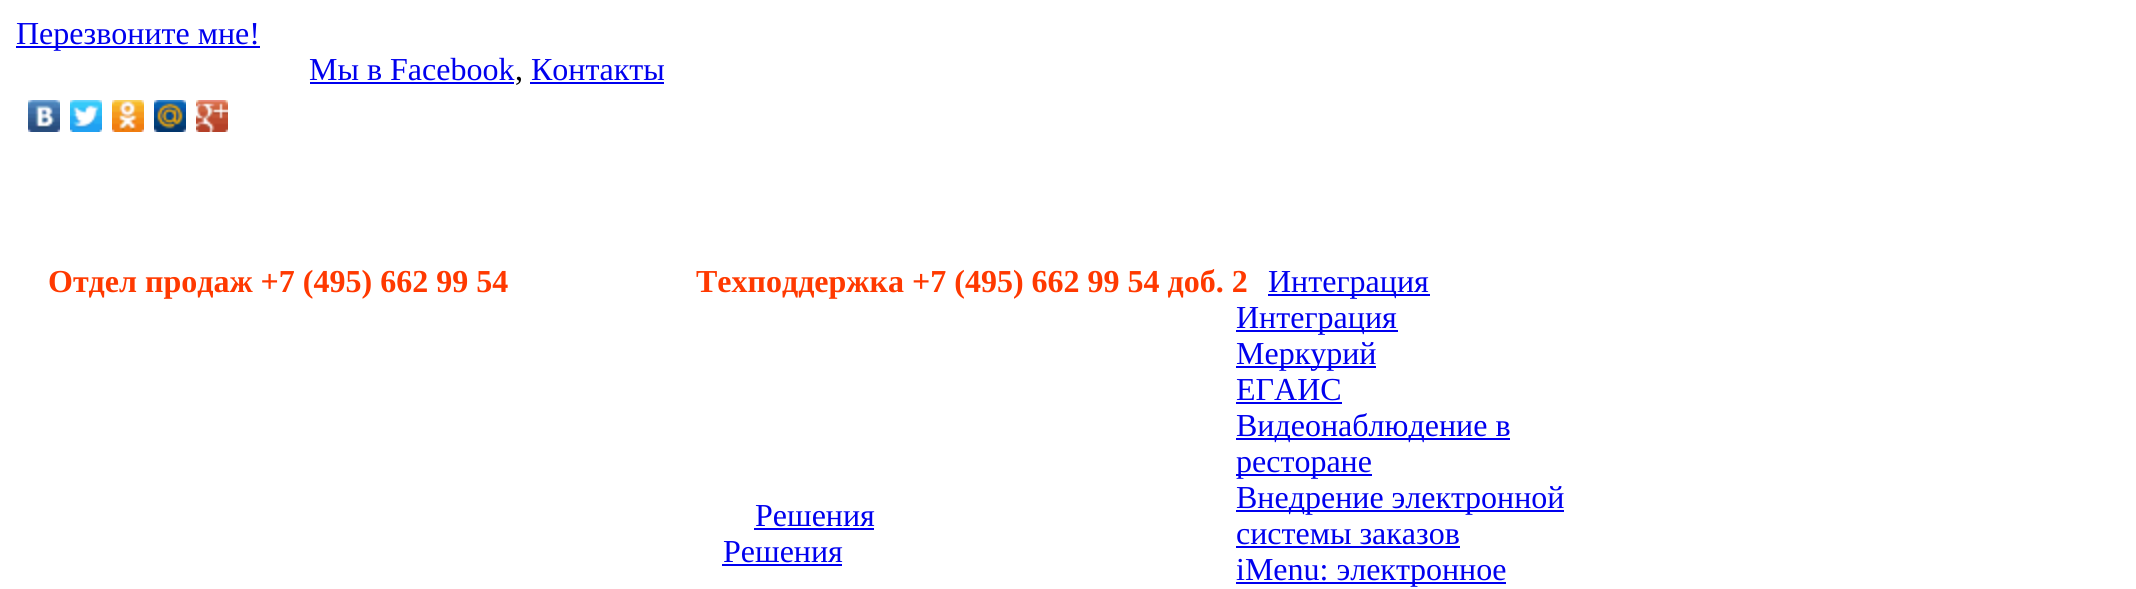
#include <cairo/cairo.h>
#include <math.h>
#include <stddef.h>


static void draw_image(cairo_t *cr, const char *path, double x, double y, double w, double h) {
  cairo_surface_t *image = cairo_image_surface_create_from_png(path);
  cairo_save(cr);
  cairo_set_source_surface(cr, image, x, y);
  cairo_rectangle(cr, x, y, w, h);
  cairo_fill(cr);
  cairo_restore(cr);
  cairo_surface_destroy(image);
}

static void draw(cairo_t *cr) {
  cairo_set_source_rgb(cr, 1, 1, 1);
  cairo_paint(cr);
  cairo_set_source_rgb(cr, 0, 0, 238 / 255.0);
  cairo_rectangle(cr, 16, 46, 244, 2);
  cairo_fill(cr);
  cairo_rectangle(cr, 310, 82, 204, 2);
  cairo_fill(cr);
  cairo_rectangle(cr, 530, 82, 134, 2);
  cairo_fill(cr);
  draw_image(cr, "images/1.png", 28, 100, 32, 32);
  draw_image(cr, "images/2.png", 70, 100, 32, 32);
  draw_image(cr, "images/3.png", 112, 100, 32, 32);
  draw_image(cr, "images/4.png", 154, 100, 32, 32);
  draw_image(cr, "images/5.png", 196, 100, 32, 32);
  cairo_rectangle(cr, 754, 528, 120, 2);
  cairo_fill(cr);
  cairo_rectangle(cr, 722, 564, 120, 2);
  cairo_fill(cr);
  cairo_rectangle(cr, 1268, 294, 162, 2);
  cairo_fill(cr);
  cairo_rectangle(cr, 1236, 330, 162, 2);
  cairo_fill(cr);
  cairo_rectangle(cr, 1236, 366, 140, 2);
  cairo_fill(cr);
  cairo_rectangle(cr, 1236, 402, 106, 2);
  cairo_fill(cr);
  cairo_rectangle(cr, 1236, 438, 274, 2);
  cairo_fill(cr);
  cairo_rectangle(cr, 1236, 474, 136, 2);
  cairo_fill(cr);
  cairo_rectangle(cr, 1236, 510, 328, 2);
  cairo_fill(cr);
  cairo_rectangle(cr, 1236, 546, 224, 2);
  cairo_fill(cr);
  cairo_rectangle(cr, 1236, 582, 270, 2);
  cairo_fill(cr);
  cairo_select_font_face(cr, "Liberation Serif", CAIRO_FONT_SLANT_NORMAL, CAIRO_FONT_WEIGHT_NORMAL);
  cairo_set_font_size(cr, 32);
  cairo_move_to(cr, 16, 44);
  cairo_show_text(cr, "Перезвоните мне!");
  cairo_move_to(cr, 309, 80);
  cairo_show_text(cr, "Мы в Facebook");
  cairo_set_source_rgb(cr, 0, 0, 0);
  cairo_move_to(cr, 515, 80);
  cairo_show_text(cr, ",");
  cairo_set_source_rgb(cr, 0, 0, 238 / 255.0);
  cairo_move_to(cr, 531, 80);
  cairo_show_text(cr, "Контакты");
  cairo_select_font_face(cr, "Liberation Serif", CAIRO_FONT_SLANT_NORMAL, CAIRO_FONT_WEIGHT_BOLD);
  cairo_set_source_rgb(cr, 1, 57 / 255.0, 0);
  cairo_move_to(cr, 48, 292);
  cairo_show_text(cr, "Отдел продаж +7 (495) 662 99 54");
  cairo_move_to(cr, 696, 292);
  cairo_show_text(cr, "Техподдержка +7 (495) 662 99 54 доб. 2");
  cairo_select_font_face(cr, "Liberation Serif", CAIRO_FONT_SLANT_NORMAL, CAIRO_FONT_WEIGHT_NORMAL);
  cairo_set_source_rgb(cr, 0, 0, 238 / 255.0);
  cairo_move_to(cr, 755, 526);
  cairo_show_text(cr, "Решения");
  cairo_move_to(cr, 723, 562);
  cairo_show_text(cr, "Решения");
  cairo_move_to(cr, 1268, 292);
  cairo_show_text(cr, "Интеграция");
  cairo_move_to(cr, 1236, 328);
  cairo_show_text(cr, "Интеграция");
  cairo_move_to(cr, 1236, 364);
  cairo_show_text(cr, "Меркурий");
  cairo_move_to(cr, 1236, 400);
  cairo_show_text(cr, "ЕГАИС");
  cairo_move_to(cr, 1236, 436);
  cairo_show_text(cr, "Видеонаблюдение в");
  cairo_move_to(cr, 1236, 472);
  cairo_show_text(cr, "ресторане");
  cairo_move_to(cr, 1236, 508);
  cairo_show_text(cr, "Внедрение электронной");
  cairo_move_to(cr, 1236, 544);
  cairo_show_text(cr, "системы заказов");
  cairo_move_to(cr, 1236, 580);
  cairo_show_text(cr, "iMenu: электронное");
}

int main(void) {
  cairo_surface_t *surface = cairo_image_surface_create(CAIRO_FORMAT_RGB24, 2136, 589);
  cairo_t *cr = cairo_create(surface);
  cairo_font_options_t *options = cairo_font_options_create();
  cairo_font_options_set_hint_metrics(options, CAIRO_HINT_METRICS_OFF);
  cairo_font_options_set_hint_style(options, CAIRO_HINT_STYLE_NONE);
  cairo_set_font_options(cr, options);
  cairo_set_miter_limit(cr, 4);
  draw(cr);
  cairo_surface_write_to_png(surface, "out.png");
  cairo_font_options_destroy(options);
  cairo_destroy(cr);
  cairo_surface_destroy(surface);
  return 0;
}
